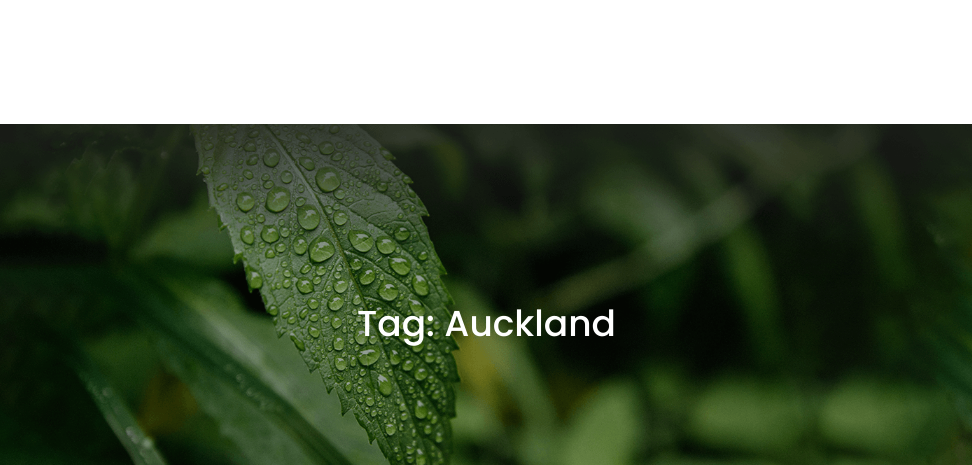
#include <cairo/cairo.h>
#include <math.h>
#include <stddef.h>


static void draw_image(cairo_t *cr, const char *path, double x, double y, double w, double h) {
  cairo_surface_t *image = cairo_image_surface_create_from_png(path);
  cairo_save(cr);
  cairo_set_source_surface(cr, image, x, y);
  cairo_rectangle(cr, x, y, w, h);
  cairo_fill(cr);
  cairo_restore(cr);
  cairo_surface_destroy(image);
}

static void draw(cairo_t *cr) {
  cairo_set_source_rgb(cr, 1, 1, 1);
  cairo_paint(cr);
  draw_image(cr, "images/1.png", 0, 124, 972, 341);
  cairo_select_font_face(cr, "Poppins Medium", CAIRO_FONT_SLANT_NORMAL, CAIRO_FONT_WEIGHT_NORMAL);
  cairo_set_font_size(cr, 36);
  cairo_set_source_rgb(cr, 1, 1, 1);
  cairo_move_to(cr, 357, 336);
  cairo_show_text(cr, "Tag: Auckland");
}

int main(void) {
  cairo_surface_t *surface = cairo_image_surface_create(CAIRO_FORMAT_RGB24, 972, 465);
  cairo_t *cr = cairo_create(surface);
  cairo_font_options_t *options = cairo_font_options_create();
  cairo_font_options_set_hint_metrics(options, CAIRO_HINT_METRICS_OFF);
  cairo_font_options_set_hint_style(options, CAIRO_HINT_STYLE_NONE);
  cairo_set_font_options(cr, options);
  cairo_set_miter_limit(cr, 4);
  draw(cr);
  cairo_surface_write_to_png(surface, "out.png");
  cairo_font_options_destroy(options);
  cairo_destroy(cr);
  cairo_surface_destroy(surface);
  return 0;
}
